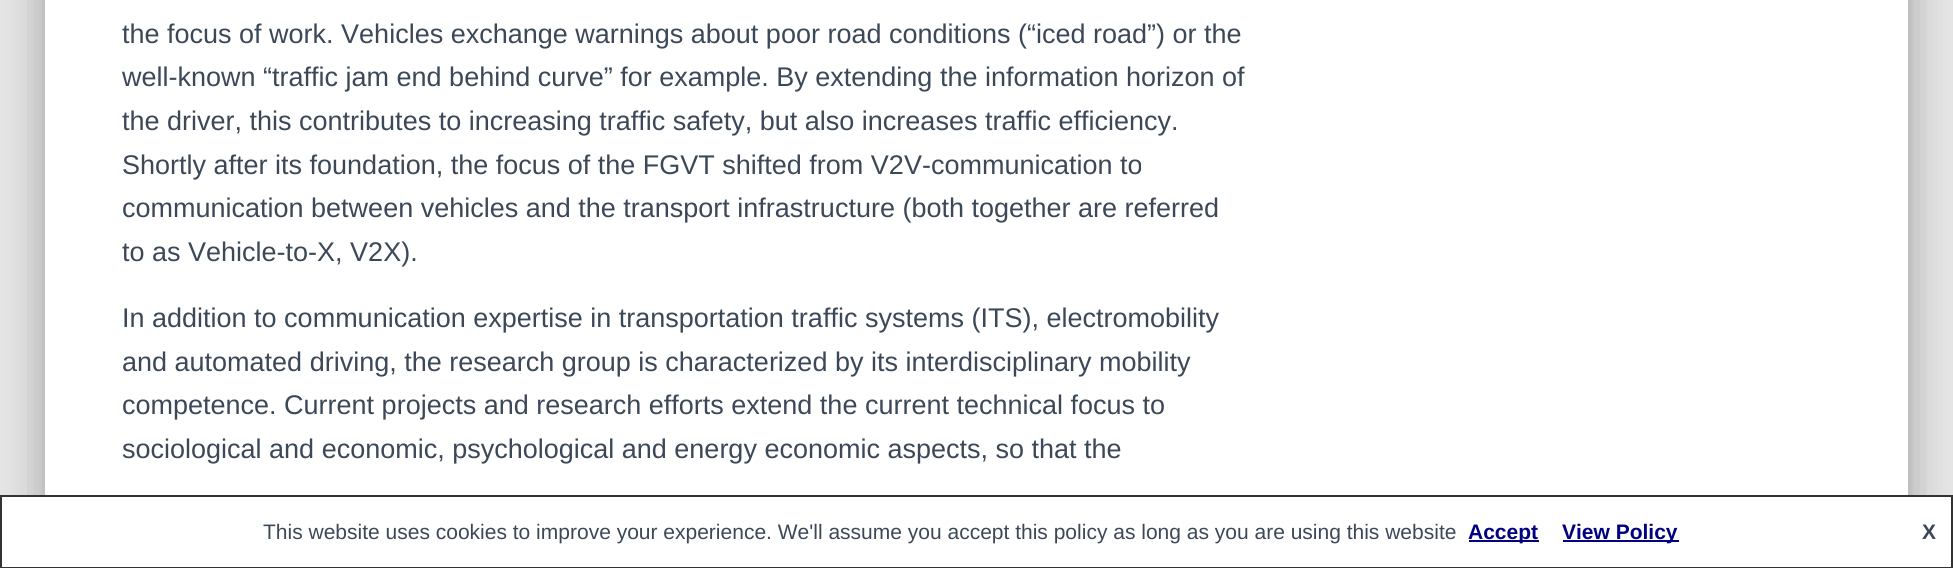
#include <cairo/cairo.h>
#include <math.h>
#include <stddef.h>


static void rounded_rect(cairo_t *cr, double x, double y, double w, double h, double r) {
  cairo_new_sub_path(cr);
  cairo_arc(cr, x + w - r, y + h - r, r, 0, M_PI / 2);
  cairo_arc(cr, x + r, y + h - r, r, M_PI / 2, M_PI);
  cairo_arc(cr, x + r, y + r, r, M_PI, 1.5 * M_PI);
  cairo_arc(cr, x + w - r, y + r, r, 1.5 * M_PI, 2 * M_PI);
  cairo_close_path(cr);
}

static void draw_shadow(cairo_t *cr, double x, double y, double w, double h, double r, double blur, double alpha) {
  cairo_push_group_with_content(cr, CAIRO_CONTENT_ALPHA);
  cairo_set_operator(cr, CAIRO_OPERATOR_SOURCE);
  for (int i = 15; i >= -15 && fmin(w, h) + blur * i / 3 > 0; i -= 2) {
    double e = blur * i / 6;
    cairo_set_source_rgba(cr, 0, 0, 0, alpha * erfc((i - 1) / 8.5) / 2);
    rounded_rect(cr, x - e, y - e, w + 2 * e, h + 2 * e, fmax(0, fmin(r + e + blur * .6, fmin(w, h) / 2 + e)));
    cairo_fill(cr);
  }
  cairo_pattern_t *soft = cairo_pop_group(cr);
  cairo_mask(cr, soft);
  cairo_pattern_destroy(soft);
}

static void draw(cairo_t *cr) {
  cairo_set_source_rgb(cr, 229 / 255.0, 229 / 255.0, 229 / 255.0);
  cairo_paint(cr);
  cairo_set_source_rgb(cr, 0, 0, 0);
  draw_shadow(cr, 53, -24, 1848, 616, 1.5, 7.5, 0.2);
  draw_shadow(cr, 38, -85, 1878, 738, 17, 22.5, 0.12);
  draw_shadow(cr, 42, -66, 1869, 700, 12, 18, 0.14);
  cairo_set_source_rgb(cr, 1, 1, 1);
  cairo_rectangle(cr, 45, 0, 1863, 495);
  cairo_fill(cr);
  cairo_rectangle(cr, 1, 496, 1951, 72);
  cairo_fill_preserve(cr);
  cairo_set_source_rgb(cr, 51 / 255.0, 51 / 255.0, 51 / 255.0);
  cairo_stroke(cr);
  cairo_set_source_rgb(cr, 0, 0, 128 / 255.0);
  cairo_rectangle(cr, 1469, 540, 70, 2);
  cairo_fill(cr);
  cairo_rectangle(cr, 1563, 540, 116, 2);
  cairo_fill(cr);
  cairo_select_font_face(cr, "Liberation Sans", CAIRO_FONT_SLANT_NORMAL, CAIRO_FONT_WEIGHT_NORMAL);
  cairo_set_font_size(cr, 27);
  cairo_set_source_rgb(cr, 60 / 255.0, 72 / 255.0, 88 / 255.0);
  cairo_move_to(cr, 122, 43);
  cairo_show_text(cr, "the focus of work. Vehicles exchange warnings about poor road conditions (“iced road”) or the");
  cairo_move_to(cr, 122, 86);
  cairo_show_text(cr, "well-known “traffic jam end behind curve” for example. By extending the information horizon of");
  cairo_move_to(cr, 122, 130);
  cairo_show_text(cr, "the driver, this contributes to increasing traffic safety, but also increases traffic efficiency.");
  cairo_move_to(cr, 122, 174);
  cairo_show_text(cr, "Shortly after its foundation, the focus of the FGVT shifted from V2V-communication to");
  cairo_move_to(cr, 122, 217);
  cairo_show_text(cr, "communication between vehicles and the transport infrastructure (both together are referred");
  cairo_move_to(cr, 122, 261);
  cairo_show_text(cr, "to as Vehicle-to-X, V2X).");
  cairo_move_to(cr, 122, 327);
  cairo_show_text(cr, "In addition to communication expertise in transportation traffic systems (ITS), electromobility");
  cairo_move_to(cr, 122, 371);
  cairo_show_text(cr, "and automated driving, the research group is characterized by its interdisciplinary mobility");
  cairo_move_to(cr, 122, 414);
  cairo_show_text(cr, "competence. Current projects and research efforts extend the current technical focus to");
  cairo_move_to(cr, 122, 458);
  cairo_show_text(cr, "sociological and economic, psychological and energy economic aspects, so that the");
  cairo_set_font_size(cr, 21);
  cairo_move_to(cr, 263, 539);
  cairo_show_text(cr, "This website uses cookies to improve your experience. We'll assume you accept this policy as long as you are using this website");
  cairo_select_font_face(cr, "Liberation Sans", CAIRO_FONT_SLANT_NORMAL, CAIRO_FONT_WEIGHT_BOLD);
  cairo_set_source_rgb(cr, 0, 0, 128 / 255.0);
  cairo_move_to(cr, 1468, 539);
  cairo_show_text(cr, "Accept");
  cairo_move_to(cr, 1562, 539);
  cairo_show_text(cr, "View Policy");
  cairo_set_source_rgb(cr, 60 / 255.0, 72 / 255.0, 88 / 255.0);
  cairo_move_to(cr, 1922, 539);
  cairo_show_text(cr, "X");
}

int main(void) {
  cairo_surface_t *surface = cairo_image_surface_create(CAIRO_FORMAT_RGB24, 1953, 568);
  cairo_t *cr = cairo_create(surface);
  cairo_font_options_t *options = cairo_font_options_create();
  cairo_font_options_set_hint_metrics(options, CAIRO_HINT_METRICS_OFF);
  cairo_font_options_set_hint_style(options, CAIRO_HINT_STYLE_NONE);
  cairo_set_font_options(cr, options);
  cairo_set_miter_limit(cr, 4);
  draw(cr);
  cairo_surface_write_to_png(surface, "out.png");
  cairo_font_options_destroy(options);
  cairo_destroy(cr);
  cairo_surface_destroy(surface);
  return 0;
}
